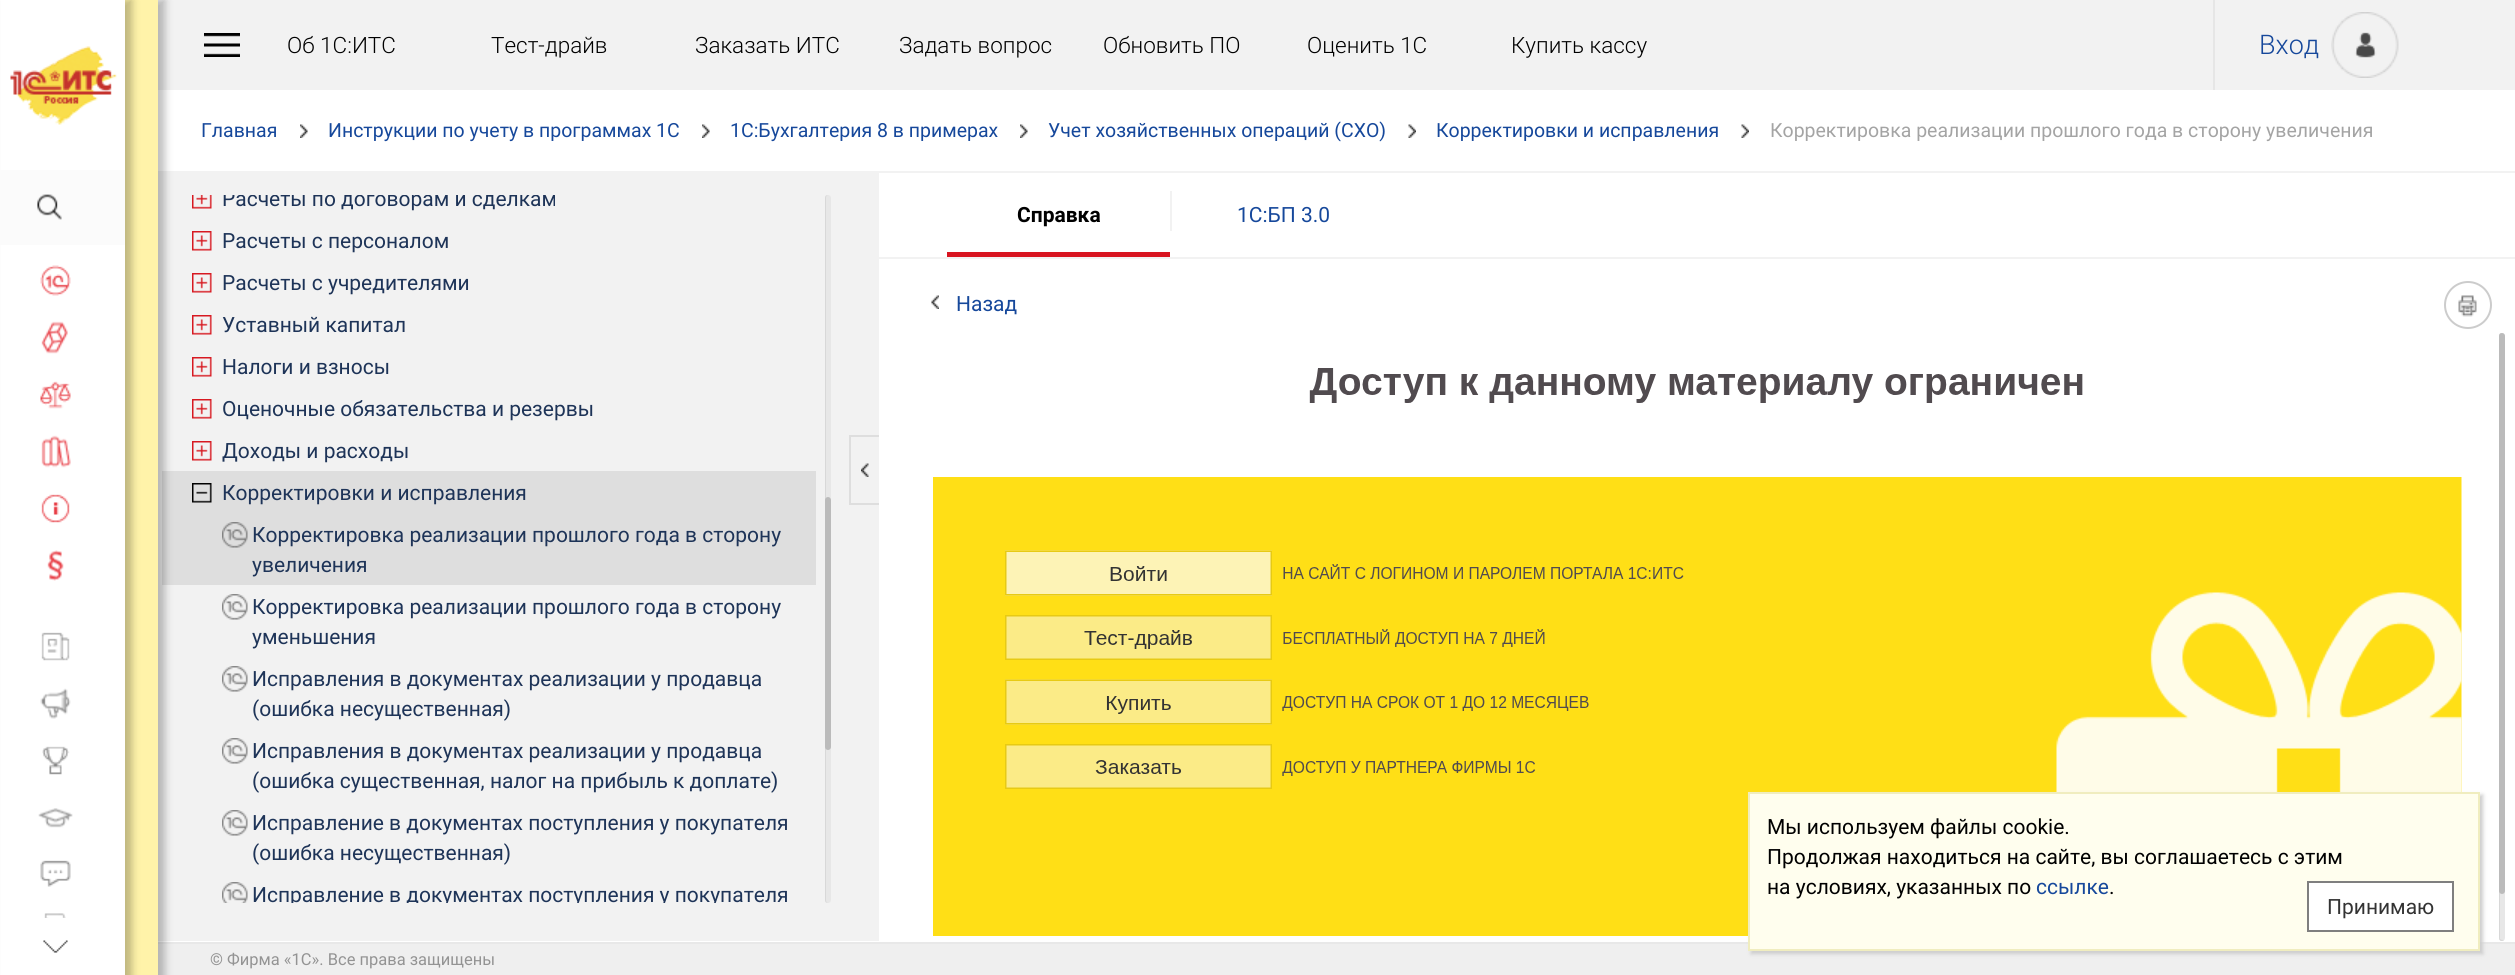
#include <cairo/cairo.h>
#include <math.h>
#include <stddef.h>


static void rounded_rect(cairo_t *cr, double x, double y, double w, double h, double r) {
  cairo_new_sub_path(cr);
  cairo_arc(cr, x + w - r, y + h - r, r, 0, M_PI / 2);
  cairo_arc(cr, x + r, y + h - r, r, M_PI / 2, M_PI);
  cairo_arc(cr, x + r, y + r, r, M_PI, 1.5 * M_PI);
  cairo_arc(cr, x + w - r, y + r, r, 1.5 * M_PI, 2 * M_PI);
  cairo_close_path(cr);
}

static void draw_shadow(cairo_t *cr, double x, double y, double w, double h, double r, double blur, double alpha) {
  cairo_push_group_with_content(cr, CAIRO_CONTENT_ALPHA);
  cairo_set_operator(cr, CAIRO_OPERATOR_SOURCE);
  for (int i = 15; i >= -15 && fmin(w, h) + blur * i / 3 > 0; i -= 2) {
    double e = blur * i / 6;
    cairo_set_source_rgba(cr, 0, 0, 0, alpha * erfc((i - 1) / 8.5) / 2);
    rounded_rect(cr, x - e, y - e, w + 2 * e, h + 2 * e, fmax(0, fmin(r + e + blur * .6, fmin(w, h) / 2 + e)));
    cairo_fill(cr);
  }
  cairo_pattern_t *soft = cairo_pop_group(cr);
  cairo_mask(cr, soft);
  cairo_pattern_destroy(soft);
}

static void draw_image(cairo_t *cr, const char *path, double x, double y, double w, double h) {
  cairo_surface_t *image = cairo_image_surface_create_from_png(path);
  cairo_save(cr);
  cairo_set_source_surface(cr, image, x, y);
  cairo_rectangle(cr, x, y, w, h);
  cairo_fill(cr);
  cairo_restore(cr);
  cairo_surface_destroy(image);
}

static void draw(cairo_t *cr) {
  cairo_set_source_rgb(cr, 1, 1, 1);
  cairo_paint(cr);
  cairo_set_source_rgb(cr, 1, 243 / 255.0, 169 / 255.0);
  cairo_rectangle(cr, 125, 0, 33, 975);
  cairo_fill(cr);
  cairo_set_source_rgb(cr, 0, 0, 0);
  draw_shadow(cr, 8, 0, 124, 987, 0, 4, 0.25);
  cairo_set_source_rgb(cr, 1, 1, 1);
  cairo_rectangle(cr, 1, 0, 124, 975);
  cairo_fill(cr);
  draw_image(cr, "images/1.png", 40, 265, 31, 31);
  draw_image(cr, "images/2.png", 41, 321, 27, 33);
  draw_image(cr, "images/3.png", 40, 381, 31, 28);
  draw_image(cr, "images/4.png", 41, 435, 30, 33);
  draw_image(cr, "images/5.png", 41, 494, 29, 29);
  draw_image(cr, "images/6.png", 47, 550, 17, 31);
  cairo_set_source_rgb(cr, 242 / 255.0, 242 / 255.0, 242 / 255.0);
  cairo_rectangle(cr, 158, 0, 2357, 90);
  cairo_fill(cr);
  cairo_rectangle(cr, 158, 171, 2357, 2);
  cairo_fill(cr);
  cairo_rectangle(cr, 158, 173, 721, 768);
  cairo_fill(cr);
  cairo_set_source_rgb(cr, 222 / 255.0, 222 / 255.0, 222 / 255.0);
  cairo_rectangle(cr, 162, 471, 654, 114);
  cairo_fill(cr);
  cairo_set_source_rgb(cr, 239 / 255.0, 239 / 255.0, 239 / 255.0);
  cairo_rectangle(cr, 158, 944, 2357, 31);
  cairo_fill(cr);
  cairo_set_source_rgb(cr, 232 / 255.0, 232 / 255.0, 232 / 255.0);
  cairo_rectangle(cr, 158, 942, 2357, 2);
  cairo_fill(cr);
  cairo_save(cr);
  cairo_set_fill_rule(cr, CAIRO_FILL_RULE_EVEN_ODD);
  cairo_new_path(cr);
  cairo_move_to(cr, 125, 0);
  cairo_line_to(cr, 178, 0);
  cairo_line_to(cr, 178, 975);
  cairo_line_to(cr, 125, 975);
  cairo_close_path(cr);
  cairo_move_to(cr, 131, 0);
  cairo_line_to(cr, 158, 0);
  cairo_line_to(cr, 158, 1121);
  cairo_line_to(cr, 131, 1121);
  cairo_close_path(cr);
  cairo_clip(cr);
  cairo_set_source_rgb(cr, 0, 0, 0);
  draw_shadow(cr, 138, 0, 27, 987, 0, 4, 0.25);
  cairo_restore(cr);
  draw_image(cr, "images/7.png", 41, 632, 29, 29);
  draw_image(cr, "images/8.png", 40, 688, 31, 31);
  draw_image(cr, "images/9.png", 42, 746, 28, 29);
  draw_image(cr, "images/10.png", 38, 808, 35, 20);
  draw_image(cr, "images/11.png", 40, 860, 31, 27);
  draw_image(cr, "images/12.png", 44, 913, 22, 5);
  draw_image(cr, "images/13.png", 10, 46, 107, 79);
  cairo_set_source_rgb(cr, 251 / 255.0, 251 / 255.0, 251 / 255.0);
  cairo_rectangle(cr, 0, 170, 125, 75);
  cairo_fill(cr);
  draw_image(cr, "images/14.png", 37, 194, 25, 26);
  draw_image(cr, "images/15.png", 43, 940, 25, 13);
  draw_image(cr, "images/16.png", 204, 33, 36, 24);
  cairo_set_source_rgb(cr, 230 / 255.0, 230 / 255.0, 230 / 255.0);
  cairo_rectangle(cr, 2213, 0, 2, 90);
  cairo_fill(cr);
  draw_image(cr, "images/17.png", 2331, 12, 68, 66);
  draw_image(cr, "images/18.png", 300, 124, 8, 14);
  draw_image(cr, "images/18.png", 702, 124, 8, 14);
  draw_image(cr, "images/19.png", 1020, 124, 8, 14);
  draw_image(cr, "images/20.png", 1408, 124, 8, 14);
  draw_image(cr, "images/21.png", 1741, 124, 8, 14);
  draw_image(cr, "images/22.png", 192, 195, 20, 14);
  draw_image(cr, "images/23.png", 192, 231, 20, 20);
  draw_image(cr, "images/23.png", 192, 273, 20, 20);
  draw_image(cr, "images/23.png", 192, 315, 20, 20);
  draw_image(cr, "images/23.png", 192, 357, 20, 20);
  draw_image(cr, "images/23.png", 192, 399, 20, 20);
  draw_image(cr, "images/23.png", 192, 441, 20, 20);
  draw_image(cr, "images/24.png", 192, 483, 20, 20);
  draw_image(cr, "images/25.png", 222, 522, 26, 26);
  draw_image(cr, "images/26.png", 222, 594, 26, 26);
  draw_image(cr, "images/26.png", 222, 666, 26, 26);
  draw_image(cr, "images/26.png", 222, 738, 26, 26);
  draw_image(cr, "images/26.png", 222, 810, 26, 26);
  draw_image(cr, "images/27.png", 222, 882, 26, 21);
  cairo_set_source_rgb(cr, 231 / 255.0, 231 / 255.0, 231 / 255.0);
  rounded_rect(cr, 825, 195, 6, 708, 3);
  cairo_fill(cr);
  cairo_set_source_rgb(cr, 216 / 255.0, 216 / 255.0, 216 / 255.0);
  cairo_new_path(cr);
  cairo_move_to(cr, 828, 195);
  cairo_curve_to(cr, 826, 195, 825, 196, 825, 198);
  cairo_line_to(cr, 825, 900);
  cairo_curve_to(cr, 825, 902, 826, 903, 828, 903);
  cairo_line_to(cr, 829, 903);
  cairo_curve_to(cr, 827, 903, 826, 902, 826, 900);
  cairo_line_to(cr, 826, 198);
  cairo_curve_to(cr, 826, 196, 827, 195, 829, 195);
  cairo_close_path(cr);
  cairo_fill(cr);
  cairo_set_source_rgb(cr, 187 / 255.0, 187 / 255.0, 187 / 255.0);
  rounded_rect(cr, 825, 497, 6, 253, 3);
  cairo_fill(cr);
  cairo_set_source_rgb(cr, 222 / 255.0, 222 / 255.0, 222 / 255.0);
  cairo_rectangle(cr, 849, 435, 30, 2);
  cairo_fill(cr);
  cairo_rectangle(cr, 849, 503, 30, 2);
  cairo_fill(cr);
  cairo_rectangle(cr, 849, 435, 2, 69);
  cairo_fill(cr);
  draw_image(cr, "images/28.png", 861, 463, 8, 14);
  cairo_set_source_rgb(cr, 242 / 255.0, 242 / 255.0, 242 / 255.0);
  cairo_rectangle(cr, 879, 257, 1636, 2);
  cairo_fill(cr);
  cairo_rectangle(cr, 1170, 191, 2, 40);
  cairo_fill(cr);
  cairo_set_source_rgb(cr, 216 / 255.0, 20 / 255.0, 32 / 255.0);
  cairo_rectangle(cr, 947, 252, 223, 5);
  cairo_fill(cr);
  draw_image(cr, "images/29.png", 931, 295, 8, 14);
  draw_image(cr, "images/30.png", 2458, 295, 19, 22);
  cairo_arc(cr, 2468, 305, 23, 0, 2 * M_PI);
  cairo_set_source_rgb(cr, 204 / 255.0, 204 / 255.0, 204 / 255.0);
  cairo_stroke(cr);
  draw_image(cr, "images/31.png", 933, 368, 1529, 568);
  cairo_set_source_rgb(cr, 231 / 255.0, 231 / 255.0, 231 / 255.0);
  rounded_rect(cr, 2499, 333, 6, 608, 3);
  cairo_fill(cr);
  cairo_set_source_rgb(cr, 216 / 255.0, 216 / 255.0, 216 / 255.0);
  cairo_new_path(cr);
  cairo_move_to(cr, 2502, 333);
  cairo_curve_to(cr, 2500, 333, 2499, 334, 2499, 336);
  cairo_line_to(cr, 2499, 938);
  cairo_curve_to(cr, 2499, 941, 2502, 942, 2504, 940);
  cairo_curve_to(cr, 2503, 940, 2501, 940, 2500, 939);
  cairo_line_to(cr, 2500, 336);
  cairo_curve_to(cr, 2500, 335, 2501, 334, 2502, 333);
  cairo_line_to(cr, 2503, 333);
  cairo_close_path(cr);
  cairo_fill(cr);
  cairo_set_source_rgb(cr, 187 / 255.0, 187 / 255.0, 187 / 255.0);
  rounded_rect(cr, 2499, 333, 6, 561, 3);
  cairo_fill(cr);
  cairo_set_source_rgb(cr, 204 / 255.0, 204 / 255.0, 204 / 255.0);
  draw_shadow(cr, 1751, 795, 732, 159, 0, 2, 1);
  cairo_set_source_rgb(cr, 1, 254 / 255.0, 238 / 255.0);
  cairo_rectangle(cr, 1749, 793, 730, 157);
  cairo_fill_preserve(cr);
  cairo_set_source_rgb(cr, 240 / 255.0, 237 / 255.0, 191 / 255.0);
  cairo_stroke(cr);
  cairo_set_source_rgb(cr, 1, 1, 1);
  cairo_rectangle(cr, 2308, 882, 145, 49);
  cairo_fill_preserve(cr);
  cairo_set_source_rgb(cr, 127 / 255.0, 127 / 255.0, 127 / 255.0);
  cairo_stroke(cr);
  cairo_select_font_face(cr, "Roboto Light", CAIRO_FONT_SLANT_NORMAL, CAIRO_FONT_WEIGHT_NORMAL);
  cairo_set_font_size(cr, 22.5);
  cairo_set_source_rgb(cr, 0, 0, 0);
  cairo_move_to(cr, 287, 53);
  cairo_show_text(cr, "Об 1С:ИТС");
  cairo_move_to(cr, 491, 53);
  cairo_show_text(cr, "Тест-драйв");
  cairo_move_to(cr, 695, 53);
  cairo_show_text(cr, "Заказать ИТС");
  cairo_move_to(cr, 899, 53);
  cairo_show_text(cr, "Задать вопрос");
  cairo_move_to(cr, 1103, 53);
  cairo_show_text(cr, "Обновить ПО");
  cairo_move_to(cr, 1307, 53);
  cairo_show_text(cr, "Оценить 1С");
  cairo_move_to(cr, 1511, 53);
  cairo_show_text(cr, "Купить кассу");
  cairo_set_font_size(cr, 27);
  cairo_set_source_rgb(cr, 22 / 255.0, 72 / 255.0, 155 / 255.0);
  cairo_move_to(cr, 2259, 54);
  cairo_show_text(cr, "Вход");
  cairo_select_font_face(cr, "Roboto", CAIRO_FONT_SLANT_NORMAL, CAIRO_FONT_WEIGHT_NORMAL);
  cairo_set_font_size(cr, 19.5);
  cairo_move_to(cr, 201, 137);
  cairo_show_text(cr, "Главная");
  cairo_move_to(cr, 328, 137);
  cairo_show_text(cr, "Инструкции по учету в программах 1С");
  cairo_move_to(cr, 730, 137);
  cairo_show_text(cr, "1С:Бухгалтерия 8 в примерах");
  cairo_move_to(cr, 1048, 137);
  cairo_show_text(cr, "Учет хозяйственных операций (СХО)");
  cairo_move_to(cr, 1436, 137);
  cairo_show_text(cr, "Корректировки и исправления");
  cairo_set_source_rgb(cr, 164 / 255.0, 164 / 255.0, 164 / 255.0);
  cairo_move_to(cr, 1770, 137);
  cairo_show_text(cr, "Корректировка реализации прошлого года в сторону увеличения");
  cairo_save(cr);
  cairo_rectangle(cr, 162, 195, 680, 708);
  cairo_clip(cr);
  cairo_set_font_size(cr, 21);
  cairo_set_source_rgb(cr, 30 / 255.0, 52 / 255.0, 88 / 255.0);
  cairo_move_to(cr, 222, 206);
  cairo_show_text(cr, "Расчеты по договорам и сделкам");
  cairo_restore(cr);
  cairo_set_font_size(cr, 21);
  cairo_set_source_rgb(cr, 30 / 255.0, 52 / 255.0, 88 / 255.0);
  cairo_move_to(cr, 222, 248);
  cairo_show_text(cr, "Расчеты с персоналом");
  cairo_move_to(cr, 222, 290);
  cairo_show_text(cr, "Расчеты с учредителями");
  cairo_move_to(cr, 222, 332);
  cairo_show_text(cr, "Уставный капитал");
  cairo_move_to(cr, 222, 374);
  cairo_show_text(cr, "Налоги и взносы");
  cairo_move_to(cr, 222, 416);
  cairo_show_text(cr, "Оценочные обязательства и резервы");
  cairo_move_to(cr, 222, 458);
  cairo_show_text(cr, "Доходы и расходы");
  cairo_move_to(cr, 222, 500);
  cairo_show_text(cr, "Корректировки и исправления");
  cairo_move_to(cr, 252, 542);
  cairo_show_text(cr, "Корректировка реализации прошлого года в сторону");
  cairo_move_to(cr, 252, 572);
  cairo_show_text(cr, "увеличения");
  cairo_move_to(cr, 252, 614);
  cairo_show_text(cr, "Корректировка реализации прошлого года в сторону");
  cairo_move_to(cr, 252, 644);
  cairo_show_text(cr, "уменьшения");
  cairo_move_to(cr, 252, 686);
  cairo_show_text(cr, "Исправления в документах реализации у продавца");
  cairo_move_to(cr, 252, 716);
  cairo_show_text(cr, "(ошибка несущественная)");
  cairo_move_to(cr, 252, 758);
  cairo_show_text(cr, "Исправления в документах реализации у продавца");
  cairo_move_to(cr, 252, 788);
  cairo_show_text(cr, "(ошибка существенная, налог на прибыль к доплате)");
  cairo_move_to(cr, 252, 830);
  cairo_show_text(cr, "Исправление в документах поступления у покупателя");
  cairo_move_to(cr, 252, 860);
  cairo_show_text(cr, "(ошибка несущественная)");
  cairo_save(cr);
  cairo_rectangle(cr, 162, 195, 680, 708);
  cairo_clip(cr);
  cairo_move_to(cr, 252, 902);
  cairo_show_text(cr, "Исправление в документах поступления у покупателя");
  cairo_restore(cr);
  cairo_select_font_face(cr, "Roboto", CAIRO_FONT_SLANT_NORMAL, CAIRO_FONT_WEIGHT_BOLD);
  cairo_set_source_rgb(cr, 0, 0, 0);
  cairo_move_to(cr, 1017, 222);
  cairo_show_text(cr, "Справка");
  cairo_select_font_face(cr, "Roboto", CAIRO_FONT_SLANT_NORMAL, CAIRO_FONT_WEIGHT_NORMAL);
  cairo_set_source_rgb(cr, 22 / 255.0, 72 / 255.0, 155 / 255.0);
  cairo_move_to(cr, 1237, 222);
  cairo_show_text(cr, "1С:БП 3.0");
  cairo_move_to(cr, 956, 311);
  cairo_show_text(cr, "Назад");
  cairo_set_source_rgb(cr, 0, 0, 0);
  cairo_move_to(cr, 1767, 834);
  cairo_show_text(cr, "Мы используем файлы cookie.");
  cairo_move_to(cr, 1767, 864);
  cairo_show_text(cr, "Продолжая находиться на сайте, вы соглашаетесь с этим");
  cairo_move_to(cr, 1767, 894);
  cairo_show_text(cr, "на условиях, указанных по");
  cairo_set_source_rgb(cr, 22 / 255.0, 72 / 255.0, 155 / 255.0);
  cairo_move_to(cr, 2036, 894);
  cairo_show_text(cr, "ссылке");
  cairo_set_source_rgb(cr, 0, 0, 0);
  cairo_move_to(cr, 2109, 894);
  cairo_show_text(cr, ".");
  cairo_set_source_rgb(cr, 51 / 255.0, 51 / 255.0, 51 / 255.0);
  cairo_move_to(cr, 2327, 914);
  cairo_show_text(cr, "Принимаю");
  cairo_set_font_size(cr, 16.5);
  cairo_set_source_rgb(cr, 147 / 255.0, 147 / 255.0, 147 / 255.0);
  cairo_move_to(cr, 210, 965);
  cairo_show_text(cr, "© Фирма «1С». Все права защищены");
}

int main(void) {
  cairo_surface_t *surface = cairo_image_surface_create(CAIRO_FORMAT_RGB24, 2515, 975);
  cairo_t *cr = cairo_create(surface);
  cairo_font_options_t *options = cairo_font_options_create();
  cairo_font_options_set_hint_metrics(options, CAIRO_HINT_METRICS_OFF);
  cairo_font_options_set_hint_style(options, CAIRO_HINT_STYLE_NONE);
  cairo_set_font_options(cr, options);
  cairo_set_miter_limit(cr, 4);
  draw(cr);
  cairo_surface_write_to_png(surface, "out.png");
  cairo_font_options_destroy(options);
  cairo_destroy(cr);
  cairo_surface_destroy(surface);
  return 0;
}
